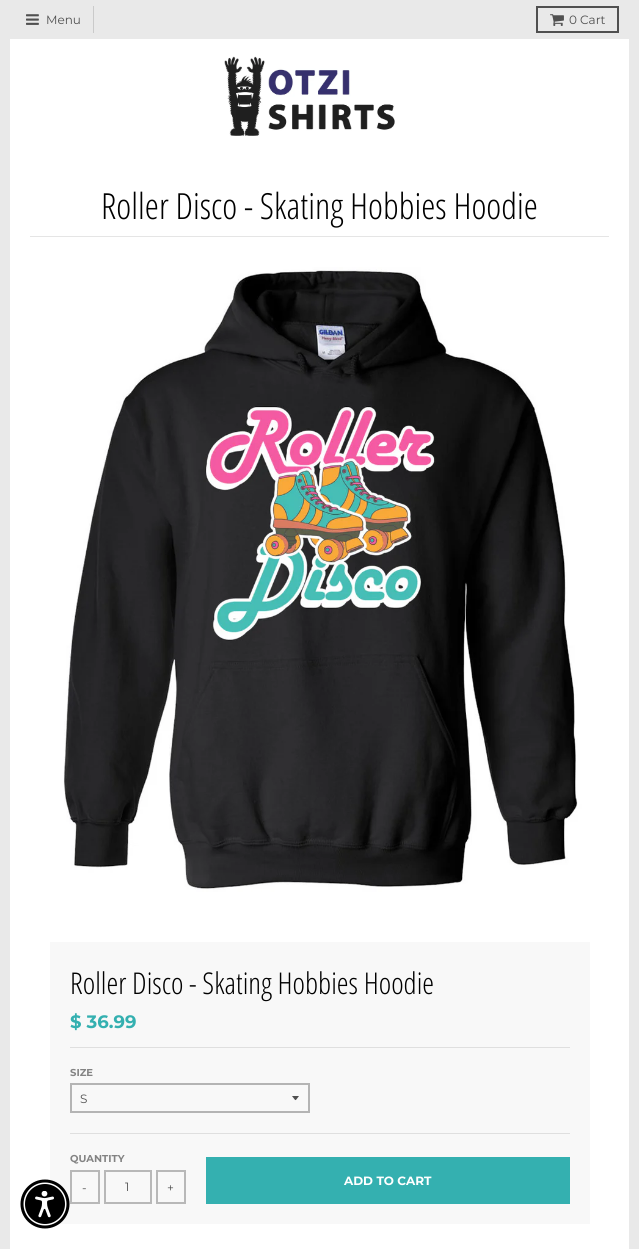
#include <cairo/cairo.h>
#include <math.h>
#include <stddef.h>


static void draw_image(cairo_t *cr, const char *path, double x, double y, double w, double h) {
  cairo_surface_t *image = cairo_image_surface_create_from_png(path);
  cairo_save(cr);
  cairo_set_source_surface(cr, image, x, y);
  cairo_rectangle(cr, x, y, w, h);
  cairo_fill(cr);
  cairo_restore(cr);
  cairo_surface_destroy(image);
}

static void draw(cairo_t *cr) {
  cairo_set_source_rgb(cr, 1, 1, 1);
  cairo_paint(cr);
  cairo_set_source_rgb(cr, 233 / 255.0, 233 / 255.0, 233 / 255.0);
  cairo_rectangle(cr, 629, 0, 10, 1249);
  cairo_fill(cr);
  cairo_rectangle(cr, 0, 0, 10, 1249);
  cairo_fill(cr);
  cairo_rectangle(cr, 10, 0, 619, 39);
  cairo_fill(cr);
  cairo_set_source_rgb(cr, 202 / 255.0, 202 / 255.0, 202 / 255.0);
  cairo_rectangle(cr, 93, 6, 1, 27);
  cairo_fill(cr);
  draw_image(cr, "images/1.png", 26, 14, 13, 11);
  cairo_rectangle(cr, 537, 7, 81, 25);
  cairo_set_source_rgb(cr, 80 / 255.0, 80 / 255.0, 80 / 255.0);
  cairo_stroke(cr);
  draw_image(cr, "images/2.png", 550, 14, 14, 12);
  draw_image(cr, "images/3.png", 224, 56, 171, 80);
  cairo_set_source_rgb(cr, 229 / 255.0, 229 / 255.0, 229 / 255.0);
  cairo_rectangle(cr, 30, 236, 579, 1);
  cairo_fill(cr);
  draw_image(cr, "images/4.png", 30, 267, 579, 625);
  cairo_set_source_rgb(cr, 248 / 255.0, 248 / 255.0, 248 / 255.0);
  cairo_rectangle(cr, 50, 942, 540, 282);
  cairo_fill(cr);
  cairo_set_source_rgb(cr, 223 / 255.0, 223 / 255.0, 223 / 255.0);
  cairo_rectangle(cr, 70, 1047, 500, 1);
  cairo_fill(cr);
  cairo_rectangle(cr, 70, 1133, 500, 1);
  cairo_fill(cr);
  cairo_set_source_rgb(cr, 79 / 255.0, 79 / 255.0, 79 / 255.0);
  cairo_new_path(cr);
  cairo_move_to(cr, 292, 1096);
  cairo_curve_to(cr, 296.5, 1101.5, 294.5, 1101.5, 299, 1096);
  cairo_close_path(cr);
  cairo_fill(cr);
  cairo_rectangle(cr, 71, 1084, 238, 28);
  cairo_set_source_rgb(cr, 180 / 255.0, 180 / 255.0, 180 / 255.0);
  cairo_stroke(cr);
  cairo_rectangle(cr, 71, 1171, 28, 32);
  cairo_set_source_rgb(cr, 184 / 255.0, 184 / 255.0, 184 / 255.0);
  cairo_stroke(cr);
  cairo_rectangle(cr, 105, 1171, 46, 32);
  cairo_stroke(cr);
  cairo_rectangle(cr, 157, 1171, 28, 32);
  cairo_stroke(cr);
  cairo_set_source_rgb(cr, 52 / 255.0, 176 / 255.0, 176 / 255.0);
  cairo_rectangle(cr, 206, 1157, 364, 47);
  cairo_fill(cr);
  cairo_set_source_rgb(cr, 0, 0, 0);
  cairo_arc(cr, 45, 1204, 24.5, 0, 2 * M_PI);
  cairo_fill(cr);
  cairo_set_source_rgb(cr, 1, 1, 1);
  cairo_arc(cr, 45, 1204, 21.5, 0, 2 * M_PI);
  cairo_fill(cr);
  cairo_set_source_rgb(cr, 0, 0, 0);
  cairo_arc(cr, 45, 1204, 20, 0, 2 * M_PI);
  cairo_fill(cr);
  draw_image(cr, "images/5.png", 35, 1191, 19, 27);
  cairo_select_font_face(cr, "Montserrat", CAIRO_FONT_SLANT_NORMAL, CAIRO_FONT_WEIGHT_NORMAL);
  cairo_set_font_size(cr, 12);
  cairo_set_source_rgb(cr, 79 / 255.0, 79 / 255.0, 79 / 255.0);
  cairo_move_to(cr, 46, 24);
  cairo_show_text(cr, "Menu");
  cairo_move_to(cr, 569, 24);
  cairo_show_text(cr, "0 Cart");
  cairo_select_font_face(cr, "Open Sans Condensed Light", CAIRO_FONT_SLANT_NORMAL, CAIRO_FONT_WEIGHT_NORMAL);
  cairo_set_font_size(cr, 36);
  cairo_set_source_rgb(cr, 0, 0, 0);
  cairo_move_to(cr, 101, 219);
  cairo_show_text(cr, "Roller Disco - Skating Hobbies Hoodie");
  cairo_set_font_size(cr, 30);
  cairo_move_to(cr, 70, 994);
  cairo_show_text(cr, "Roller Disco - Skating Hobbies Hoodie");
  cairo_select_font_face(cr, "Montserrat", CAIRO_FONT_SLANT_NORMAL, CAIRO_FONT_WEIGHT_BOLD);
  cairo_set_font_size(cr, 18);
  cairo_set_source_rgb(cr, 52 / 255.0, 176 / 255.0, 176 / 255.0);
  cairo_move_to(cr, 70, 1028);
  cairo_show_text(cr, "$ 36.99");
  cairo_set_font_size(cr, 10);
  cairo_set_source_rgb(cr, 131 / 255.0, 131 / 255.0, 131 / 255.0);
  cairo_move_to(cr, 70, 1076);
  cairo_show_text(cr, "SIZE");
  cairo_select_font_face(cr, "Montserrat", CAIRO_FONT_SLANT_NORMAL, CAIRO_FONT_WEIGHT_NORMAL);
  cairo_set_font_size(cr, 12);
  cairo_set_source_rgb(cr, 79 / 255.0, 79 / 255.0, 79 / 255.0);
  cairo_move_to(cr, 80, 1103);
  cairo_show_text(cr, "S");
  cairo_select_font_face(cr, "Montserrat", CAIRO_FONT_SLANT_NORMAL, CAIRO_FONT_WEIGHT_BOLD);
  cairo_set_font_size(cr, 10);
  cairo_set_source_rgb(cr, 131 / 255.0, 131 / 255.0, 131 / 255.0);
  cairo_move_to(cr, 70, 1162);
  cairo_show_text(cr, "QUANTITY");
  cairo_select_font_face(cr, "Montserrat", CAIRO_FONT_SLANT_NORMAL, CAIRO_FONT_WEIGHT_NORMAL);
  cairo_set_font_size(cr, 12);
  cairo_set_source_rgb(cr, 79 / 255.0, 79 / 255.0, 79 / 255.0);
  cairo_move_to(cr, 82, 1192);
  cairo_show_text(cr, "-");
  cairo_move_to(cr, 125, 1191);
  cairo_show_text(cr, "1");
  cairo_move_to(cr, 167, 1192);
  cairo_show_text(cr, "+");
  cairo_select_font_face(cr, "Montserrat", CAIRO_FONT_SLANT_NORMAL, CAIRO_FONT_WEIGHT_BOLD);
  cairo_set_source_rgb(cr, 1, 1, 1);
  cairo_move_to(cr, 344, 1185);
  cairo_show_text(cr, "ADD TO CART");
}

int main(void) {
  cairo_surface_t *surface = cairo_image_surface_create(CAIRO_FORMAT_RGB24, 639, 1249);
  cairo_t *cr = cairo_create(surface);
  cairo_font_options_t *options = cairo_font_options_create();
  cairo_font_options_set_hint_metrics(options, CAIRO_HINT_METRICS_OFF);
  cairo_font_options_set_hint_style(options, CAIRO_HINT_STYLE_NONE);
  cairo_set_font_options(cr, options);
  cairo_set_miter_limit(cr, 4);
  draw(cr);
  cairo_surface_write_to_png(surface, "out.png");
  cairo_font_options_destroy(options);
  cairo_destroy(cr);
  cairo_surface_destroy(surface);
  return 0;
}
